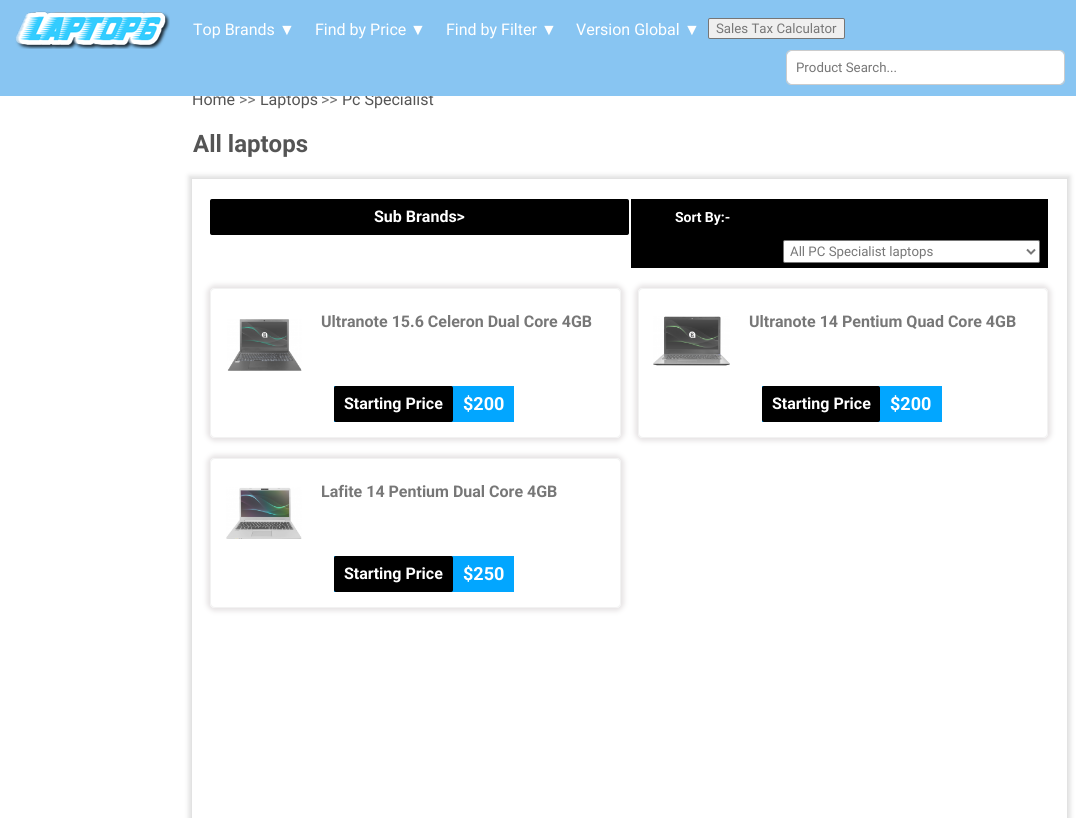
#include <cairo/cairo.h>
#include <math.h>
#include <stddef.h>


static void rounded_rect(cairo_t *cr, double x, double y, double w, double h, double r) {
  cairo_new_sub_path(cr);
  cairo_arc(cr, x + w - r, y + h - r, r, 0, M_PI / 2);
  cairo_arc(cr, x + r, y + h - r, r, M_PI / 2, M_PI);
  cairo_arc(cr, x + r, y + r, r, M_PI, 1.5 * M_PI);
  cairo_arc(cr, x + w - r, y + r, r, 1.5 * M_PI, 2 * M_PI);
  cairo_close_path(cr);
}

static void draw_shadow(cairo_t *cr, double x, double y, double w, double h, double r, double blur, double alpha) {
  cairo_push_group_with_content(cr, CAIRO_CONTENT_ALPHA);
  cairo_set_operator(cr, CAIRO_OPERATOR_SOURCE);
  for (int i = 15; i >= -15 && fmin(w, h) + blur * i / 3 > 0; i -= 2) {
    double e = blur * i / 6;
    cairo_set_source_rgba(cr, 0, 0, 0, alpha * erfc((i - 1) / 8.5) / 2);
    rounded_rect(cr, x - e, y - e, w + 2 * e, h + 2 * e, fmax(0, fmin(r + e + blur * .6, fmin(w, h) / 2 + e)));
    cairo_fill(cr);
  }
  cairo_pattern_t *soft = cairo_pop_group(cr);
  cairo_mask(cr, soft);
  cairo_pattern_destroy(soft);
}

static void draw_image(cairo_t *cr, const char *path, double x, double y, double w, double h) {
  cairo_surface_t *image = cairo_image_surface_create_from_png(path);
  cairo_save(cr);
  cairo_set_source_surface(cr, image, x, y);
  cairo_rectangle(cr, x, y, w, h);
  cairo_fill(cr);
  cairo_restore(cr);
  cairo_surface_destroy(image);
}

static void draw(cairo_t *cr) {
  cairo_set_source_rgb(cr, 1, 1, 1);
  cairo_paint(cr);
  cairo_save(cr);
  cairo_set_fill_rule(cr, CAIRO_FILL_RULE_EVEN_ODD);
  cairo_new_path(cr);
  cairo_move_to(cr, 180, 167);
  cairo_line_to(cr, 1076, 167);
  cairo_line_to(cr, 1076, 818);
  cairo_line_to(cr, 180, 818);
  cairo_close_path(cr);
  cairo_move_to(cr, 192, 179);
  cairo_line_to(cr, 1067, 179);
  cairo_line_to(cr, 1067, 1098);
  cairo_line_to(cr, 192, 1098);
  cairo_close_path(cr);
  cairo_clip(cr);
  cairo_set_source_rgb(cr, 221 / 255.0, 221 / 255.0, 221 / 255.0);
  draw_shadow(cr, 189, 176, 881, 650, 0, 2.5, 1);
  cairo_restore(cr);
  cairo_set_source_rgb(cr, 0, 0, 0);
  rounded_rect(cr, 210, 199, 419, 36, 2);
  cairo_fill(cr);
  cairo_rectangle(cr, 631, 199, 417, 69);
  cairo_fill(cr);
  cairo_set_source_rgb(cr, 1, 1, 1);
  rounded_rect(cr, 783.5, 240.5, 256, 22, 1.5);
  cairo_fill_preserve(cr);
  cairo_set_source_rgb(cr, 118 / 255.0, 118 / 255.0, 118 / 255.0);
  cairo_set_line_width(cr, 1);
  cairo_stroke(cr);
  cairo_new_path(cr);
  cairo_move_to(cr, 1027, 249.5);
  cairo_line_to(cr, 1031, 253.5);
  cairo_line_to(cr, 1035, 249.5);
  cairo_set_source_rgb(cr, 119 / 255.0, 119 / 255.0, 119 / 255.0);
  cairo_set_line_width(cr, 2);
  cairo_stroke(cr);
  cairo_save(cr);
  cairo_set_fill_rule(cr, CAIRO_FILL_RULE_EVEN_ODD);
  cairo_new_path(cr);
  cairo_move_to(cr, 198, 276);
  cairo_line_to(cr, 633, 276);
  cairo_line_to(cr, 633, 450);
  cairo_line_to(cr, 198, 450);
  cairo_close_path(cr);
  cairo_move_to(cr, 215, 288);
  cairo_line_to(cr, 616, 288);
  cairo_curve_to(cr, 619, 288, 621, 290, 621, 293);
  cairo_line_to(cr, 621, 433);
  cairo_curve_to(cr, 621, 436, 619, 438, 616, 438);
  cairo_line_to(cr, 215, 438);
  cairo_curve_to(cr, 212, 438, 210, 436, 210, 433);
  cairo_line_to(cr, 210, 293);
  cairo_curve_to(cr, 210, 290, 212, 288, 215, 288);
  cairo_close_path(cr);
  cairo_clip(cr);
  cairo_set_source_rgb(cr, 230 / 255.0, 227 / 255.0, 228 / 255.0);
  draw_shadow(cr, 207, 285, 417, 156, 8, 2.5, 1);
  cairo_restore(cr);
  rounded_rect(cr, 210.5, 288.5, 410, 149, 4.5);
  cairo_set_source_rgb(cr, 242 / 255.0, 242 / 255.0, 242 / 255.0);
  cairo_set_line_width(cr, 1);
  cairo_stroke(cr);
  draw_image(cr, "images/2.png", 227, 319, 75, 52);
  cairo_set_source_rgb(cr, 2 / 255.0, 166 / 255.0, 1);
  cairo_rectangle(cr, 334, 386, 180, 36);
  cairo_fill(cr);
  cairo_set_source_rgb(cr, 0, 0, 0);
  rounded_rect(cr, 334, 386, 119, 36, 2);
  cairo_fill(cr);
  cairo_save(cr);
  cairo_set_fill_rule(cr, CAIRO_FILL_RULE_EVEN_ODD);
  cairo_new_path(cr);
  cairo_move_to(cr, 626, 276);
  cairo_line_to(cr, 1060, 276);
  cairo_line_to(cr, 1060, 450);
  cairo_line_to(cr, 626, 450);
  cairo_close_path(cr);
  cairo_move_to(cr, 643, 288);
  cairo_line_to(cr, 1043, 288);
  cairo_curve_to(cr, 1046, 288, 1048, 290, 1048, 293);
  cairo_line_to(cr, 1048, 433);
  cairo_curve_to(cr, 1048, 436, 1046, 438, 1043, 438);
  cairo_line_to(cr, 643, 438);
  cairo_curve_to(cr, 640, 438, 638, 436, 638, 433);
  cairo_line_to(cr, 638, 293);
  cairo_curve_to(cr, 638, 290, 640, 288, 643, 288);
  cairo_close_path(cr);
  cairo_clip(cr);
  cairo_set_source_rgb(cr, 230 / 255.0, 227 / 255.0, 228 / 255.0);
  draw_shadow(cr, 635, 285, 416, 156, 8, 2.5, 1);
  cairo_restore(cr);
  rounded_rect(cr, 638.5, 288.5, 409, 149, 4.5);
  cairo_set_source_rgb(cr, 242 / 255.0, 242 / 255.0, 242 / 255.0);
  cairo_stroke(cr);
  draw_image(cr, "images/3.png", 653, 316, 77, 50);
  cairo_set_source_rgb(cr, 2 / 255.0, 166 / 255.0, 1);
  cairo_rectangle(cr, 762, 386, 180, 36);
  cairo_fill(cr);
  cairo_set_source_rgb(cr, 0, 0, 0);
  rounded_rect(cr, 762, 386, 118, 36, 2);
  cairo_fill(cr);
  cairo_save(cr);
  cairo_set_fill_rule(cr, CAIRO_FILL_RULE_EVEN_ODD);
  cairo_new_path(cr);
  cairo_move_to(cr, 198, 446);
  cairo_line_to(cr, 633, 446);
  cairo_line_to(cr, 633, 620);
  cairo_line_to(cr, 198, 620);
  cairo_close_path(cr);
  cairo_move_to(cr, 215, 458);
  cairo_line_to(cr, 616, 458);
  cairo_curve_to(cr, 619, 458, 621, 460, 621, 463);
  cairo_line_to(cr, 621, 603);
  cairo_curve_to(cr, 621, 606, 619, 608, 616, 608);
  cairo_line_to(cr, 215, 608);
  cairo_curve_to(cr, 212, 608, 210, 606, 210, 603);
  cairo_line_to(cr, 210, 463);
  cairo_curve_to(cr, 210, 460, 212, 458, 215, 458);
  cairo_close_path(cr);
  cairo_clip(cr);
  cairo_set_source_rgb(cr, 230 / 255.0, 227 / 255.0, 228 / 255.0);
  draw_shadow(cr, 207, 455, 417, 156, 8, 2.5, 1);
  cairo_restore(cr);
  rounded_rect(cr, 210.5, 458.5, 410, 149, 4.5);
  cairo_set_source_rgb(cr, 242 / 255.0, 242 / 255.0, 242 / 255.0);
  cairo_stroke(cr);
  draw_image(cr, "images/4.png", 226, 487, 76, 52);
  cairo_set_source_rgb(cr, 2 / 255.0, 166 / 255.0, 1);
  cairo_rectangle(cr, 334, 556, 180, 36);
  cairo_fill(cr);
  cairo_set_source_rgb(cr, 0, 0, 0);
  rounded_rect(cr, 334, 556, 119, 36, 2);
  cairo_fill(cr);
  cairo_select_font_face(cr, "Roboto", CAIRO_FONT_SLANT_NORMAL, CAIRO_FONT_WEIGHT_NORMAL);
  cairo_set_font_size(cr, 16);
  cairo_set_source_rgb(cr, 85 / 255.0, 85 / 255.0, 85 / 255.0);
  cairo_move_to(cr, 192, 105);
  cairo_show_text(cr, "Home");
  cairo_set_source_rgb(cr, 119 / 255.0, 119 / 255.0, 119 / 255.0);
  cairo_move_to(cr, 239, 105);
  cairo_show_text(cr, ">>");
  cairo_set_source_rgb(cr, 85 / 255.0, 85 / 255.0, 85 / 255.0);
  cairo_move_to(cr, 260, 105);
  cairo_show_text(cr, "Laptops");
  cairo_set_source_rgb(cr, 119 / 255.0, 119 / 255.0, 119 / 255.0);
  cairo_move_to(cr, 321, 105);
  cairo_show_text(cr, ">>");
  cairo_set_source_rgb(cr, 85 / 255.0, 85 / 255.0, 85 / 255.0);
  cairo_move_to(cr, 342, 105);
  cairo_show_text(cr, "Pc Specialist");
  cairo_set_source_rgb(cr, 136 / 255.0, 197 / 255.0, 242 / 255.0);
  cairo_rectangle(cr, 0, 0, 1076, 96);
  cairo_fill(cr);
  cairo_set_source_rgb(cr, 239 / 255.0, 239 / 255.0, 239 / 255.0);
  rounded_rect(cr, 708.5, 18.5, 136, 20, 1.5);
  cairo_fill_preserve(cr);
  cairo_set_source_rgb(cr, 118 / 255.0, 118 / 255.0, 118 / 255.0);
  cairo_stroke(cr);
  cairo_set_font_size(cr, 13.25);
  cairo_set_source_rgb(cr, 119 / 255.0, 119 / 255.0, 119 / 255.0);
  cairo_move_to(cr, 716, 33);
  cairo_show_text(cr, "Sales Tax Calculator");
  rounded_rect(cr, 786.5, 50.5, 278, 34, 4.5);
  cairo_set_source_rgb(cr, 204 / 255.0, 204 / 255.0, 204 / 255.0);
  cairo_stroke(cr);
  cairo_set_source_rgb(cr, 1, 1, 1);
  rounded_rect(cr, 787.5, 51.5, 276, 32, 4.5);
  cairo_fill_preserve(cr);
  cairo_stroke(cr);
  cairo_set_source_rgb(cr, 119 / 255.0, 119 / 255.0, 119 / 255.0);
  cairo_move_to(cr, 796, 72);
  cairo_show_text(cr, "Product Search...");
  cairo_select_font_face(cr, "Liberation Sans", CAIRO_FONT_SLANT_NORMAL, CAIRO_FONT_WEIGHT_NORMAL);
  cairo_set_font_size(cr, 16);
  cairo_set_source_rgb(cr, 1, 1, 1);
  cairo_move_to(cr, 684, 35);
  cairo_show_text(cr, "▼");
  cairo_select_font_face(cr, "Roboto", CAIRO_FONT_SLANT_NORMAL, CAIRO_FONT_WEIGHT_NORMAL);
  cairo_move_to(cr, 576, 35);
  cairo_show_text(cr, "Version Global");
  cairo_select_font_face(cr, "Liberation Sans", CAIRO_FONT_SLANT_NORMAL, CAIRO_FONT_WEIGHT_NORMAL);
  cairo_move_to(cr, 541, 35);
  cairo_show_text(cr, "▼");
  cairo_select_font_face(cr, "Roboto", CAIRO_FONT_SLANT_NORMAL, CAIRO_FONT_WEIGHT_NORMAL);
  cairo_move_to(cr, 446, 35);
  cairo_show_text(cr, "Find by Filter");
  cairo_select_font_face(cr, "Liberation Sans", CAIRO_FONT_SLANT_NORMAL, CAIRO_FONT_WEIGHT_NORMAL);
  cairo_move_to(cr, 410, 35);
  cairo_show_text(cr, "▼");
  cairo_select_font_face(cr, "Roboto", CAIRO_FONT_SLANT_NORMAL, CAIRO_FONT_WEIGHT_NORMAL);
  cairo_move_to(cr, 315, 35);
  cairo_show_text(cr, "Find by Price");
  cairo_select_font_face(cr, "Liberation Sans", CAIRO_FONT_SLANT_NORMAL, CAIRO_FONT_WEIGHT_NORMAL);
  cairo_move_to(cr, 279, 35);
  cairo_show_text(cr, "▼");
  cairo_select_font_face(cr, "Roboto", CAIRO_FONT_SLANT_NORMAL, CAIRO_FONT_WEIGHT_NORMAL);
  cairo_move_to(cr, 193, 35);
  cairo_show_text(cr, "Top Brands");
  draw_image(cr, "images/1.png", 15, 11, 155, 38);
  cairo_select_font_face(cr, "Roboto", CAIRO_FONT_SLANT_NORMAL, CAIRO_FONT_WEIGHT_BOLD);
  cairo_set_font_size(cr, 24);
  cairo_set_source_rgb(cr, 85 / 255.0, 85 / 255.0, 85 / 255.0);
  cairo_move_to(cr, 193, 152);
  cairo_show_text(cr, "All laptops");
  cairo_set_font_size(cr, 16);
  cairo_set_source_rgb(cr, 1, 1, 1);
  cairo_move_to(cr, 374, 222);
  cairo_show_text(cr, "Sub Brands>");
  cairo_set_font_size(cr, 14);
  cairo_move_to(cr, 675, 222);
  cairo_show_text(cr, "Sort By:-");
  cairo_select_font_face(cr, "Roboto", CAIRO_FONT_SLANT_NORMAL, CAIRO_FONT_WEIGHT_NORMAL);
  cairo_set_font_size(cr, 13.25);
  cairo_set_source_rgb(cr, 119 / 255.0, 119 / 255.0, 119 / 255.0);
  cairo_move_to(cr, 790, 256);
  cairo_show_text(cr, "All PC Specialist laptops");
  cairo_select_font_face(cr, "Roboto", CAIRO_FONT_SLANT_NORMAL, CAIRO_FONT_WEIGHT_BOLD);
  cairo_set_font_size(cr, 16);
  cairo_move_to(cr, 321, 327);
  cairo_show_text(cr, "Ultranote 15.6 Celeron Dual Core 4GB");
  cairo_set_source_rgb(cr, 1, 1, 1);
  cairo_move_to(cr, 344, 409);
  cairo_show_text(cr, "Starting Price");
  cairo_set_font_size(cr, 18);
  cairo_move_to(cr, 463, 410);
  cairo_show_text(cr, "$200");
  cairo_set_font_size(cr, 16);
  cairo_set_source_rgb(cr, 119 / 255.0, 119 / 255.0, 119 / 255.0);
  cairo_move_to(cr, 749, 327);
  cairo_show_text(cr, "Ultranote 14 Pentium Quad Core 4GB");
  cairo_set_source_rgb(cr, 1, 1, 1);
  cairo_move_to(cr, 772, 409);
  cairo_show_text(cr, "Starting Price");
  cairo_set_font_size(cr, 18);
  cairo_move_to(cr, 890, 410);
  cairo_show_text(cr, "$200");
  cairo_set_font_size(cr, 16);
  cairo_set_source_rgb(cr, 119 / 255.0, 119 / 255.0, 119 / 255.0);
  cairo_move_to(cr, 321, 497);
  cairo_show_text(cr, "Lafite 14 Pentium Dual Core 4GB");
  cairo_set_source_rgb(cr, 1, 1, 1);
  cairo_move_to(cr, 344, 579);
  cairo_show_text(cr, "Starting Price");
  cairo_set_font_size(cr, 18);
  cairo_move_to(cr, 463, 580);
  cairo_show_text(cr, "$250");
}

int main(void) {
  cairo_surface_t *surface = cairo_image_surface_create(CAIRO_FORMAT_RGB24, 1076, 818);
  cairo_t *cr = cairo_create(surface);
  cairo_font_options_t *options = cairo_font_options_create();
  cairo_font_options_set_hint_metrics(options, CAIRO_HINT_METRICS_OFF);
  cairo_font_options_set_hint_style(options, CAIRO_HINT_STYLE_NONE);
  cairo_set_font_options(cr, options);
  cairo_set_miter_limit(cr, 4);
  draw(cr);
  cairo_surface_write_to_png(surface, "out.png");
  cairo_font_options_destroy(options);
  cairo_destroy(cr);
  cairo_surface_destroy(surface);
  return 0;
}
